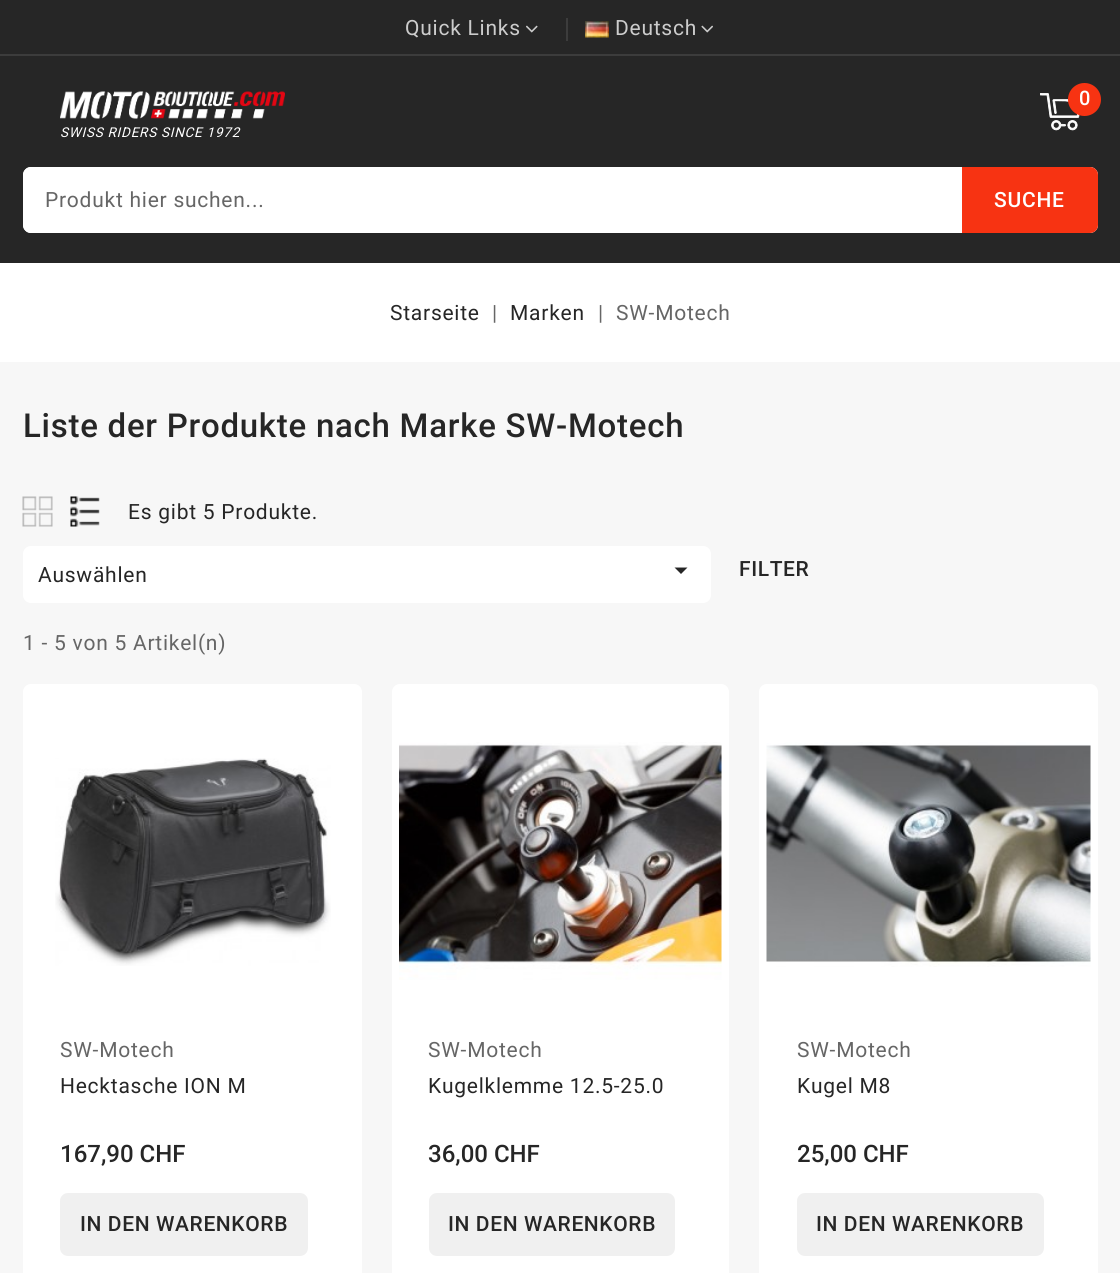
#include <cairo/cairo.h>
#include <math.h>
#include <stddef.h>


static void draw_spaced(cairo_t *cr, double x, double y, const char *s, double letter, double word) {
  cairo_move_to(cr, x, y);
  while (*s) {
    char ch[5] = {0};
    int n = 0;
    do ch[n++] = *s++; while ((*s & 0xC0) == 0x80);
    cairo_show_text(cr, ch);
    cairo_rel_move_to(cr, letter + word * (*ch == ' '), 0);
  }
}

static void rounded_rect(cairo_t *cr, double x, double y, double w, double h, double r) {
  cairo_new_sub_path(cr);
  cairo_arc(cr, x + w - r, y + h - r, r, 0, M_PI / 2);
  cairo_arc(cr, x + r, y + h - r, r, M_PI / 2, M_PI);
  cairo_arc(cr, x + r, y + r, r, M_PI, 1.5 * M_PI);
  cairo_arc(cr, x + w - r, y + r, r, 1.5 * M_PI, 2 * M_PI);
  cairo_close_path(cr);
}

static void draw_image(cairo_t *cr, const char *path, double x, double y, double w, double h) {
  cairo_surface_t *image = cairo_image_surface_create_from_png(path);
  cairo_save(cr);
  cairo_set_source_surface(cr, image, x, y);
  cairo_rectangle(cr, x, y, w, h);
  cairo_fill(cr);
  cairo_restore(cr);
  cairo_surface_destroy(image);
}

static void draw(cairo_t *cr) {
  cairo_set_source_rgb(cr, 247 / 255.0, 247 / 255.0, 247 / 255.0);
  cairo_paint(cr);
  cairo_set_source_rgb(cr, 38 / 255.0, 38 / 255.0, 38 / 255.0);
  cairo_rectangle(cr, 0, 0, 1120, 263);
  cairo_fill(cr);
  cairo_set_source_rgb(cr, 60 / 255.0, 60 / 255.0, 60 / 255.0);
  cairo_rectangle(cr, 0, 54, 1120, 2);
  cairo_fill(cr);
  draw_image(cr, "images/1.png", 526, 25, 12, 8);
  cairo_rectangle(cr, 566, 18, 2, 23);
  cairo_fill(cr);
  draw_image(cr, "images/2.png", 585, 21, 24, 17);
  draw_image(cr, "images/3.png", 701, 25, 12, 8);
  draw_image(cr, "images/4.png", 1040, 93, 40, 38);
  cairo_set_source_rgb(cr, 247 / 255.0, 51 / 255.0, 18 / 255.0);
  cairo_arc(cr, 1084.5, 99.5, 16.5, 0, 2 * M_PI);
  cairo_fill(cr);
  draw_image(cr, "images/5.png", 60, 91, 225, 28);
  cairo_set_source_rgb(cr, 1, 1, 1);
  rounded_rect(cr, 23, 167, 1075, 66, 8);
  cairo_fill(cr);
  rounded_rect(cr, 23, 167, 910, 66, 8);
  cairo_fill(cr);
  cairo_set_source_rgb(cr, 247 / 255.0, 51 / 255.0, 18 / 255.0);
  cairo_new_path(cr);
  cairo_move_to(cr, 962, 167);
  cairo_line_to(cr, 1090, 167);
  cairo_curve_to(cr, 1094.5, 167, 1098, 170.5, 1098, 175);
  cairo_line_to(cr, 1098, 225);
  cairo_curve_to(cr, 1098, 229.5, 1094.5, 233, 1090, 233);
  cairo_line_to(cr, 962, 233);
  cairo_close_path(cr);
  cairo_fill(cr);
  cairo_set_source_rgb(cr, 1, 1, 1);
  cairo_rectangle(cr, 0, 263, 1120, 99);
  cairo_fill(cr);
  draw_image(cr, "images/6.png", 22, 496, 31, 31);
  draw_image(cr, "images/7.png", 70, 496, 30, 31);
  rounded_rect(cr, 23, 546, 688, 57, 8);
  cairo_fill(cr);
  cairo_set_source_rgb(cr, 38 / 255.0, 38 / 255.0, 38 / 255.0);
  cairo_new_path(cr);
  cairo_move_to(cr, 674.5, 567.5);
  cairo_line_to(cr, 687.5, 567.5);
  cairo_line_to(cr, 681, 574);
  cairo_close_path(cr);
  cairo_fill(cr);
  cairo_set_source_rgb(cr, 1, 1, 1);
  rounded_rect(cr, 23, 684, 339, 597, 8);
  cairo_fill(cr);
  draw_image(cr, "images/8.png", 55, 758, 276, 208);
  cairo_set_source_rgb(cr, 240 / 255.0, 240 / 255.0, 240 / 255.0);
  rounded_rect(cr, 60, 1193, 248, 63, 8);
  cairo_fill(cr);
  cairo_set_source_rgb(cr, 1, 1, 1);
  rounded_rect(cr, 392, 684, 337, 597, 8);
  cairo_fill(cr);
  draw_image(cr, "images/9.png", 399, 742, 323, 238);
  cairo_set_source_rgb(cr, 240 / 255.0, 240 / 255.0, 240 / 255.0);
  rounded_rect(cr, 429, 1193, 246, 63, 8);
  cairo_fill(cr);
  cairo_set_source_rgb(cr, 1, 1, 1);
  rounded_rect(cr, 759, 684, 339, 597, 8);
  cairo_fill(cr);
  draw_image(cr, "images/10.png", 766, 742, 325, 225);
  cairo_set_source_rgb(cr, 240 / 255.0, 240 / 255.0, 240 / 255.0);
  rounded_rect(cr, 797, 1193, 247, 63, 8);
  cairo_fill(cr);
  cairo_select_font_face(cr, "Roboto", CAIRO_FONT_SLANT_NORMAL, CAIRO_FONT_WEIGHT_NORMAL);
  cairo_set_font_size(cr, 21);
  cairo_set_source_rgb(cr, 204 / 255.0, 204 / 255.0, 204 / 255.0);
  draw_spaced(cr, 405, 35, "Quick Links", 0.75, 0);
  draw_spaced(cr, 615, 35, "Deutsch", 0.75, 0);
  cairo_select_font_face(cr, "Roboto Medium", CAIRO_FONT_SLANT_NORMAL, CAIRO_FONT_WEIGHT_NORMAL);
  cairo_set_font_size(cr, 20);
  cairo_set_source_rgb(cr, 1, 1, 1);
  draw_spaced(cr, 1079, 105, "0", 0.75, 0);
  cairo_select_font_face(cr, "Roboto", CAIRO_FONT_SLANT_ITALIC, CAIRO_FONT_WEIGHT_NORMAL);
  cairo_set_font_size(cr, 13.5);
  draw_spaced(cr, 60, 137, "SWISS RIDERS SINCE 1972", 0.75, 0);
  cairo_select_font_face(cr, "Roboto", CAIRO_FONT_SLANT_NORMAL, CAIRO_FONT_WEIGHT_NORMAL);
  cairo_set_font_size(cr, 21);
  cairo_set_source_rgb(cr, 102 / 255.0, 102 / 255.0, 102 / 255.0);
  draw_spaced(cr, 45, 207, "Produkt hier suchen...", 0.75, 0);
  cairo_select_font_face(cr, "Roboto Medium", CAIRO_FONT_SLANT_NORMAL, CAIRO_FONT_WEIGHT_NORMAL);
  cairo_set_source_rgb(cr, 1, 1, 1);
  draw_spaced(cr, 994, 207, "SUCHE", 0.75, 0);
  cairo_select_font_face(cr, "Roboto", CAIRO_FONT_SLANT_NORMAL, CAIRO_FONT_WEIGHT_NORMAL);
  cairo_set_source_rgb(cr, 38 / 255.0, 38 / 255.0, 38 / 255.0);
  draw_spaced(cr, 390, 320, "Starseite", 0.75, 0);
  cairo_set_source_rgb(cr, 102 / 255.0, 102 / 255.0, 102 / 255.0);
  draw_spaced(cr, 492, 320, "|", 0.75, 0);
  cairo_set_source_rgb(cr, 38 / 255.0, 38 / 255.0, 38 / 255.0);
  draw_spaced(cr, 510, 320, "Marken", 0.75, 0);
  cairo_set_source_rgb(cr, 102 / 255.0, 102 / 255.0, 102 / 255.0);
  draw_spaced(cr, 598, 320, "|", 0.75, 0);
  draw_spaced(cr, 616, 320, "SW-Motech", 0.75, 0);
  cairo_select_font_face(cr, "Roboto Medium", CAIRO_FONT_SLANT_NORMAL, CAIRO_FONT_WEIGHT_NORMAL);
  cairo_set_font_size(cr, 33);
  cairo_set_source_rgb(cr, 38 / 255.0, 38 / 255.0, 38 / 255.0);
  draw_spaced(cr, 23, 437, "Liste der Produkte nach Marke SW-Motech", 0.75, 0);
  cairo_select_font_face(cr, "Roboto", CAIRO_FONT_SLANT_NORMAL, CAIRO_FONT_WEIGHT_NORMAL);
  cairo_set_font_size(cr, 21);
  draw_spaced(cr, 128, 519, "Es gibt 5 Produkte.", 0.75, 0);
  draw_spaced(cr, 38, 582, "Auswählen", 0.75, 0);
  cairo_select_font_face(cr, "Roboto Medium", CAIRO_FONT_SLANT_NORMAL, CAIRO_FONT_WEIGHT_NORMAL);
  draw_spaced(cr, 739, 576, "FILTER", 0.6, 0);
  cairo_select_font_face(cr, "Roboto", CAIRO_FONT_SLANT_NORMAL, CAIRO_FONT_WEIGHT_NORMAL);
  cairo_set_source_rgb(cr, 102 / 255.0, 102 / 255.0, 102 / 255.0);
  draw_spaced(cr, 23, 650, "1 - 5 von 5 Artikel(n)", 0.75, 0);
  draw_spaced(cr, 60, 1057, "SW-Motech", 0.75, 0);
  cairo_set_source_rgb(cr, 38 / 255.0, 38 / 255.0, 38 / 255.0);
  draw_spaced(cr, 60, 1093, "Hecktasche ION M", 0.75, 0);
  cairo_select_font_face(cr, "Roboto Medium", CAIRO_FONT_SLANT_NORMAL, CAIRO_FONT_WEIGHT_NORMAL);
  cairo_set_font_size(cr, 24);
  cairo_move_to(cr, 60, 1162);
  cairo_show_text(cr, "167,90 CHF");
  cairo_set_font_size(cr, 21);
  draw_spaced(cr, 80, 1231, "IN DEN WARENKORB", 0.6, 0);
  cairo_select_font_face(cr, "Roboto", CAIRO_FONT_SLANT_NORMAL, CAIRO_FONT_WEIGHT_NORMAL);
  cairo_set_source_rgb(cr, 102 / 255.0, 102 / 255.0, 102 / 255.0);
  draw_spaced(cr, 428, 1057, "SW-Motech", 0.75, 0);
  cairo_set_source_rgb(cr, 38 / 255.0, 38 / 255.0, 38 / 255.0);
  draw_spaced(cr, 428, 1093, "Kugelklemme 12.5-25.0", 0.75, 0);
  cairo_select_font_face(cr, "Roboto Medium", CAIRO_FONT_SLANT_NORMAL, CAIRO_FONT_WEIGHT_NORMAL);
  cairo_set_font_size(cr, 24);
  cairo_move_to(cr, 428, 1162);
  cairo_show_text(cr, "36,00 CHF");
  cairo_set_font_size(cr, 21);
  draw_spaced(cr, 448, 1231, "IN DEN WARENKORB", 0.6, 0);
  cairo_select_font_face(cr, "Roboto", CAIRO_FONT_SLANT_NORMAL, CAIRO_FONT_WEIGHT_NORMAL);
  cairo_set_source_rgb(cr, 102 / 255.0, 102 / 255.0, 102 / 255.0);
  draw_spaced(cr, 797, 1057, "SW-Motech", 0.75, 0);
  cairo_set_source_rgb(cr, 38 / 255.0, 38 / 255.0, 38 / 255.0);
  draw_spaced(cr, 797, 1093, "Kugel M8", 0.75, 0);
  cairo_select_font_face(cr, "Roboto Medium", CAIRO_FONT_SLANT_NORMAL, CAIRO_FONT_WEIGHT_NORMAL);
  cairo_set_font_size(cr, 24);
  cairo_move_to(cr, 797, 1162);
  cairo_show_text(cr, "25,00 CHF");
  cairo_set_font_size(cr, 21);
  draw_spaced(cr, 816, 1231, "IN DEN WARENKORB", 0.6, 0);
}

int main(void) {
  cairo_surface_t *surface = cairo_image_surface_create(CAIRO_FORMAT_RGB24, 1120, 1273);
  cairo_t *cr = cairo_create(surface);
  cairo_font_options_t *options = cairo_font_options_create();
  cairo_font_options_set_hint_metrics(options, CAIRO_HINT_METRICS_OFF);
  cairo_font_options_set_hint_style(options, CAIRO_HINT_STYLE_NONE);
  cairo_set_font_options(cr, options);
  cairo_set_miter_limit(cr, 4);
  draw(cr);
  cairo_surface_write_to_png(surface, "out.png");
  cairo_font_options_destroy(options);
  cairo_destroy(cr);
  cairo_surface_destroy(surface);
  return 0;
}
